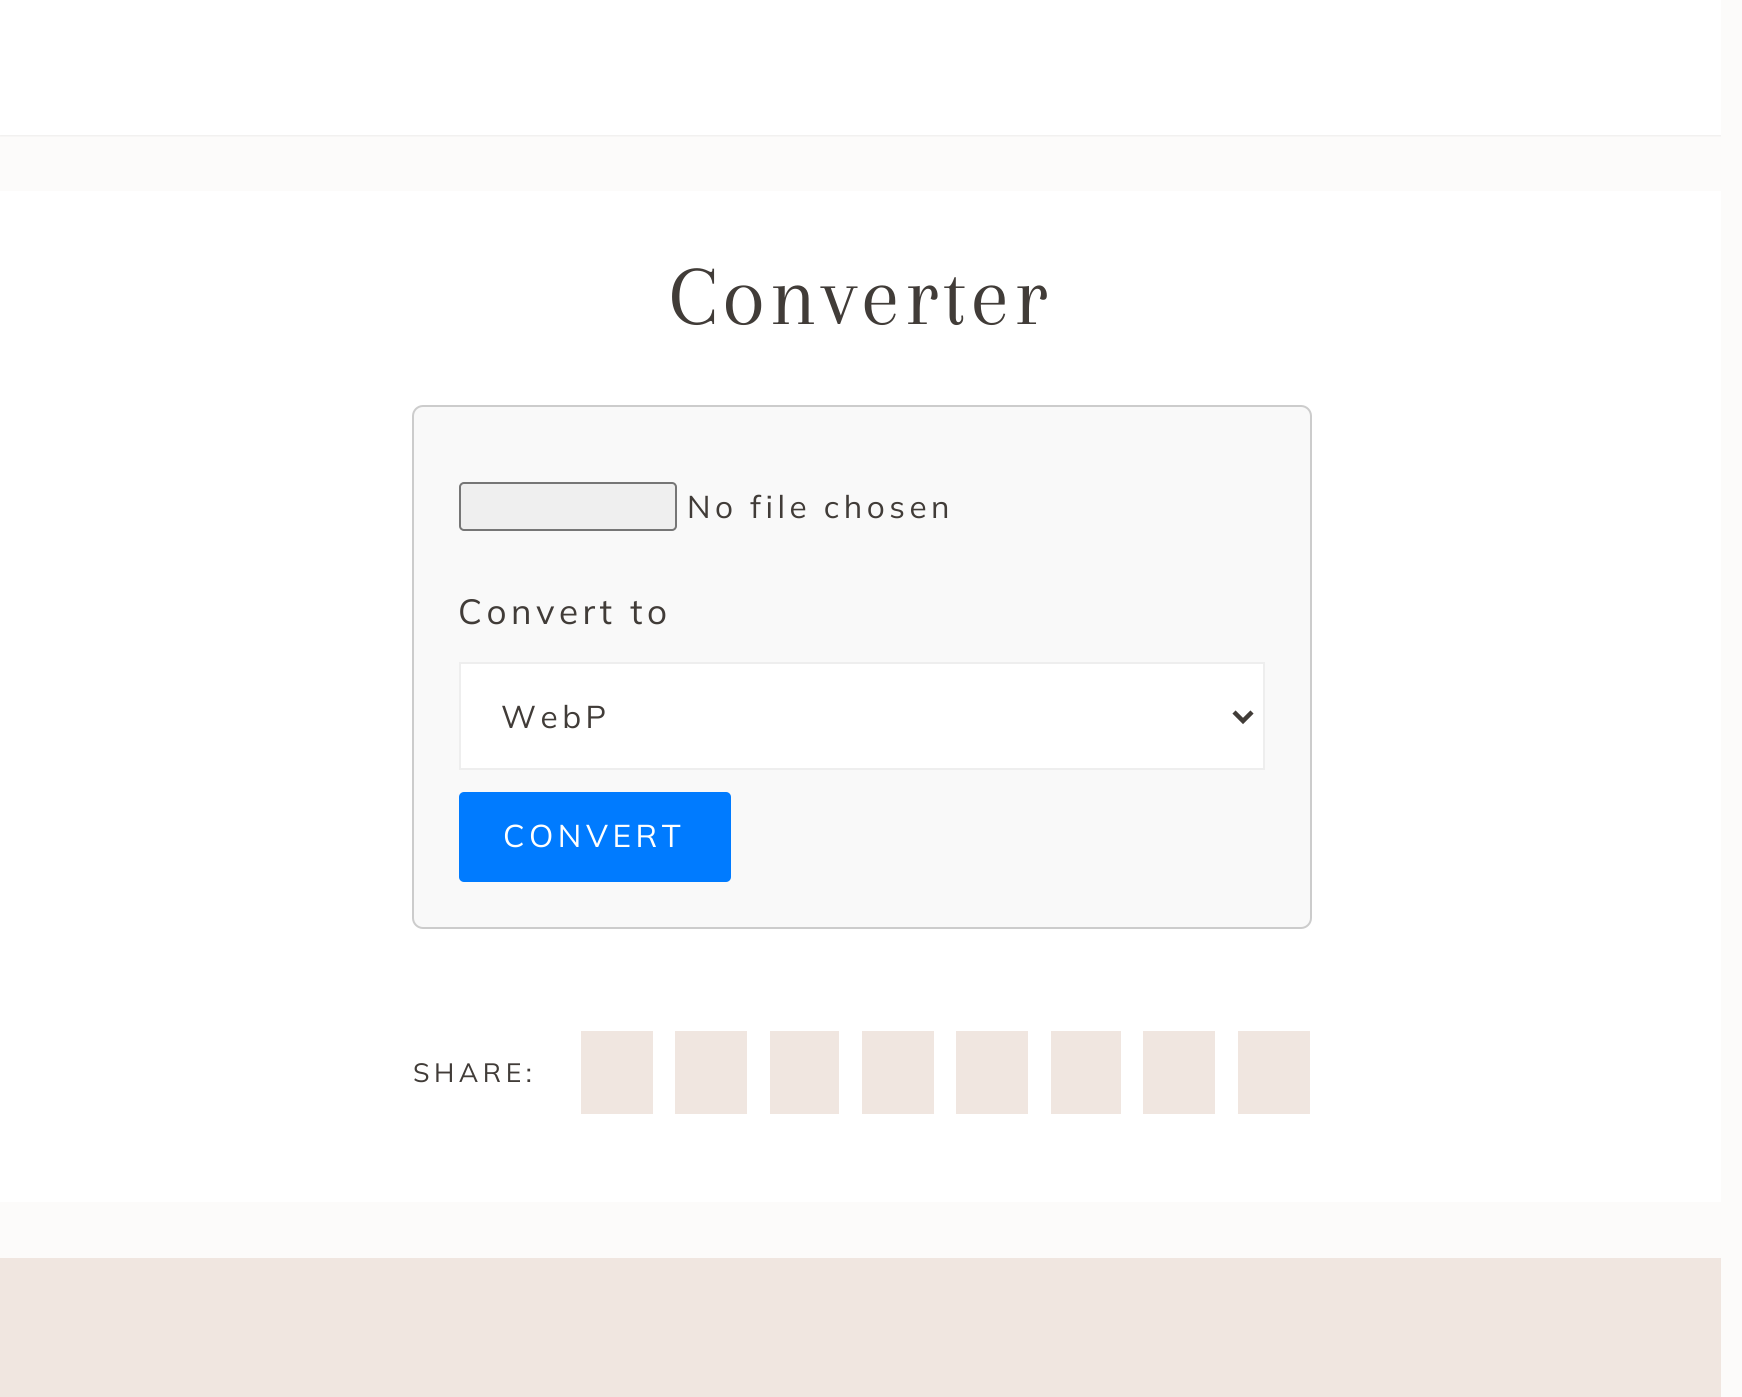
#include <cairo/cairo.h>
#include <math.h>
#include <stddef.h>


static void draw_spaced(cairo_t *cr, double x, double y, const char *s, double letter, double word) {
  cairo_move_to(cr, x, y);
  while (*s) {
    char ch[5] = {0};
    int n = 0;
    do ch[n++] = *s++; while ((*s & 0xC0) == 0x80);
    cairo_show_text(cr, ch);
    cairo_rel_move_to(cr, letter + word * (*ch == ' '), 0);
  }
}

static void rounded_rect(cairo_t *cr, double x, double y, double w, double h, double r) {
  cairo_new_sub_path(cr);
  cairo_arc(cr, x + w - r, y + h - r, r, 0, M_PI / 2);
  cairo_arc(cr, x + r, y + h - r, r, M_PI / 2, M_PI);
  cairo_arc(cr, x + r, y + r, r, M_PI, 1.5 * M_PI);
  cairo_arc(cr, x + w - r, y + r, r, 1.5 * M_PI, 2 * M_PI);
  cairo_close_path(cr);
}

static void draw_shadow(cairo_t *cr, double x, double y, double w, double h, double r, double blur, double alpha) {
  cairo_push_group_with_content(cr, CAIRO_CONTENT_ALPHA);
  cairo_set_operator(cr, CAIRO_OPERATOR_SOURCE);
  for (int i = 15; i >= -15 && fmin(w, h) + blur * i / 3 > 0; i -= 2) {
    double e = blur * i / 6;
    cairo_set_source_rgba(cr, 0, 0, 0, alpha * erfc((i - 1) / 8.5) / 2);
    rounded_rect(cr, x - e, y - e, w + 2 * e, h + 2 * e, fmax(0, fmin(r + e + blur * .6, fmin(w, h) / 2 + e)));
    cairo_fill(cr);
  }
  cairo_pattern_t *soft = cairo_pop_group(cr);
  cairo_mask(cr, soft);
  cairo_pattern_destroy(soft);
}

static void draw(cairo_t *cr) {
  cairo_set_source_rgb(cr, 252 / 255.0, 251 / 255.0, 250 / 255.0);
  cairo_paint(cr);
  cairo_set_source_rgb(cr, 1, 1, 1);
  cairo_rectangle(cr, 0, 0, 1721, 135);
  cairo_fill(cr);
  cairo_save(cr);
  cairo_rectangle(cr, 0, 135, 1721, 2);
  cairo_clip(cr);
  cairo_set_source_rgb(cr, 0, 0, 0);
  draw_shadow(cr, 0, 0, 1721, 135, 0, 2, 0.1);
  cairo_restore(cr);
  cairo_rectangle(cr, 0, 191, 1721, 1011);
  cairo_fill(cr);
  cairo_set_source_rgb(cr, 249 / 255.0, 249 / 255.0, 249 / 255.0);
  rounded_rect(cr, 413, 406, 898, 522, 10);
  cairo_fill_preserve(cr);
  cairo_set_source_rgb(cr, 204 / 255.0, 204 / 255.0, 204 / 255.0);
  cairo_stroke(cr);
  cairo_set_source_rgb(cr, 239 / 255.0, 239 / 255.0, 239 / 255.0);
  rounded_rect(cr, 460, 483, 216, 47, 4);
  cairo_fill_preserve(cr);
  cairo_set_source_rgb(cr, 118 / 255.0, 118 / 255.0, 118 / 255.0);
  cairo_stroke(cr);
  cairo_set_source_rgb(cr, 1, 1, 1);
  cairo_rectangle(cr, 460, 663, 804, 106);
  cairo_fill_preserve(cr);
  cairo_set_source_rgb(cr, 238 / 255.0, 238 / 255.0, 238 / 255.0);
  cairo_stroke(cr);
  cairo_new_path(cr);
  cairo_move_to(cr, 1234, 712);
  cairo_line_to(cr, 1243, 721);
  cairo_line_to(cr, 1252, 712);
  cairo_set_source_rgb(cr, 65 / 255.0, 60 / 255.0, 56 / 255.0);
  cairo_set_line_width(cr, 4.5);
  cairo_stroke(cr);
  cairo_set_source_rgb(cr, 0, 123 / 255.0, 1);
  rounded_rect(cr, 459, 792, 272, 90, 5);
  cairo_fill(cr);
  cairo_set_source_rgb(cr, 240 / 255.0, 230 / 255.0, 224 / 255.0);
  cairo_rectangle(cr, 581, 1031, 72, 83);
  cairo_fill(cr);
  cairo_rectangle(cr, 675, 1031, 72, 83);
  cairo_fill(cr);
  cairo_rectangle(cr, 770, 1031, 69, 83);
  cairo_fill(cr);
  cairo_rectangle(cr, 862, 1031, 72, 83);
  cairo_fill(cr);
  cairo_rectangle(cr, 956, 1031, 72, 83);
  cairo_fill(cr);
  cairo_rectangle(cr, 1051, 1031, 70, 83);
  cairo_fill(cr);
  cairo_rectangle(cr, 1143, 1031, 72, 83);
  cairo_fill(cr);
  cairo_rectangle(cr, 1238, 1031, 72, 83);
  cairo_fill(cr);
  cairo_rectangle(cr, 0, 1258, 1721, 139);
  cairo_fill(cr);
  cairo_select_font_face(cr, "Arapey", CAIRO_FONT_SLANT_NORMAL, CAIRO_FONT_WEIGHT_NORMAL);
  cairo_set_font_size(cr, 87);
  cairo_set_source_rgb(cr, 65 / 255.0, 60 / 255.0, 56 / 255.0);
  draw_spaced(cr, 669, 324, "Converter", 4.5, 0);
  cairo_select_font_face(cr, "Mulish", CAIRO_FONT_SLANT_NORMAL, CAIRO_FONT_WEIGHT_NORMAL);
  cairo_set_font_size(cr, 31.5);
  draw_spaced(cr, 687, 518, "No file chosen", 4.5, 0);
  cairo_set_font_size(cr, 35);
  draw_spaced(cr, 458, 624, "Convert to", 4.5, 0);
  cairo_set_font_size(cr, 31.5);
  draw_spaced(cr, 501, 728, "WebP", 4.5, 0);
  cairo_set_source_rgb(cr, 1, 1, 1);
  draw_spaced(cr, 503, 847, "CONVERT", 4.5, 0);
  cairo_set_font_size(cr, 26.5);
  cairo_set_source_rgb(cr, 65 / 255.0, 60 / 255.0, 56 / 255.0);
  draw_spaced(cr, 413, 1082, "SHARE:", 4.5, 0);
}

int main(void) {
  cairo_surface_t *surface = cairo_image_surface_create(CAIRO_FORMAT_RGB24, 1742, 1397);
  cairo_t *cr = cairo_create(surface);
  cairo_font_options_t *options = cairo_font_options_create();
  cairo_font_options_set_hint_metrics(options, CAIRO_HINT_METRICS_OFF);
  cairo_font_options_set_hint_style(options, CAIRO_HINT_STYLE_NONE);
  cairo_set_font_options(cr, options);
  cairo_set_miter_limit(cr, 4);
  draw(cr);
  cairo_surface_write_to_png(surface, "out.png");
  cairo_font_options_destroy(options);
  cairo_destroy(cr);
  cairo_surface_destroy(surface);
  return 0;
}
